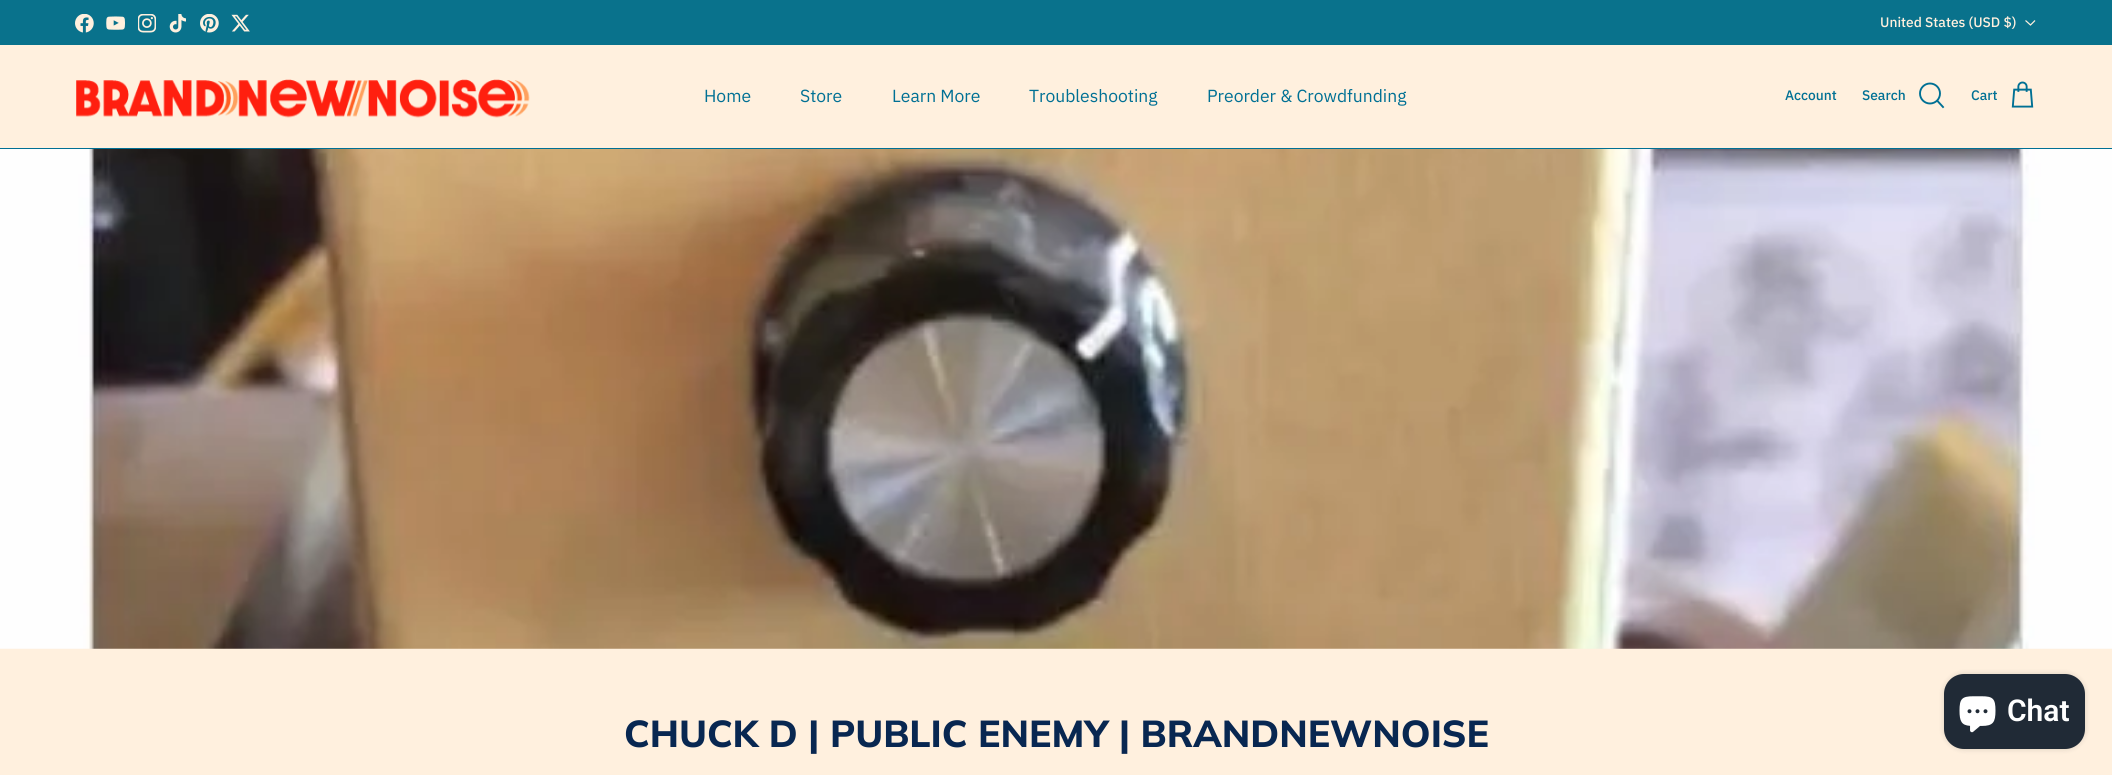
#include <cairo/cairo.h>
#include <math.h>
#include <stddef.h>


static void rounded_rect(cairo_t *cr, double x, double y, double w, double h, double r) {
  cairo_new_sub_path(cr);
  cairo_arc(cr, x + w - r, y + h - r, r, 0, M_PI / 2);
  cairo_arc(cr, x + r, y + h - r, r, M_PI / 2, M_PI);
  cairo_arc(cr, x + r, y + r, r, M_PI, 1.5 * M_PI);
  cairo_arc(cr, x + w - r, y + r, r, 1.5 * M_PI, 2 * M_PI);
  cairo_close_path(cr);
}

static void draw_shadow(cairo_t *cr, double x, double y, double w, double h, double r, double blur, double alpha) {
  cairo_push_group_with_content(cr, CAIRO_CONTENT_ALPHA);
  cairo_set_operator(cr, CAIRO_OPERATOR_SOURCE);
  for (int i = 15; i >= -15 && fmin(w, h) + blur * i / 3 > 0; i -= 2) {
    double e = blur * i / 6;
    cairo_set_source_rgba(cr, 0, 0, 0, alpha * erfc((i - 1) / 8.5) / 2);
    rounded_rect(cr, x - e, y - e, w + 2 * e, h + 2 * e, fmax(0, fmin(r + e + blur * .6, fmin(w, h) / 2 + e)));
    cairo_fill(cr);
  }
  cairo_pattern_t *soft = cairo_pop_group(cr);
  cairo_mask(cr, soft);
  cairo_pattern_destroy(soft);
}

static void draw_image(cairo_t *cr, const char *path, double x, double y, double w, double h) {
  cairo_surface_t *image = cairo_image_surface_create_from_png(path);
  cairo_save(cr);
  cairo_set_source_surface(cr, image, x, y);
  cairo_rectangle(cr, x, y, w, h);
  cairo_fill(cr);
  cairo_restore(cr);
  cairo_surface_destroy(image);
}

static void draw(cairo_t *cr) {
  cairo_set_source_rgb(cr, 1, 240 / 255.0, 222 / 255.0);
  cairo_paint(cr);
  cairo_set_source_rgb(cr, 9 / 255.0, 114 / 255.0, 140 / 255.0);
  cairo_rectangle(cr, 0, 0, 2112, 45);
  cairo_fill(cr);
  draw_image(cr, "images/1.png", 75, 14, 19, 19);
  draw_image(cr, "images/2.png", 106, 16, 19, 14);
  draw_image(cr, "images/3.png", 138, 14, 18, 19);
  draw_image(cr, "images/4.png", 169, 14, 17, 19);
  draw_image(cr, "images/5.png", 200, 14, 19, 19);
  draw_image(cr, "images/6.png", 231, 14, 19, 18);
  cairo_new_path(cr);
  cairo_move_to(cr, 2035, 20.5);
  cairo_line_to(cr, 2030.5, 25);
  cairo_line_to(cr, 2025.5, 20.5);
  cairo_set_source_rgb(cr, 1, 240 / 255.0, 222 / 255.0);
  cairo_set_line_width(cr, 1.2);
  cairo_stroke(cr);
  cairo_set_source_rgb(cr, 0, 112 / 255.0, 148 / 255.0);
  cairo_rectangle(cr, 0, 148, 2112, 1);
  cairo_fill(cr);
  draw_image(cr, "images/7.png", 76, 79, 454, 39);
  cairo_arc(cr, 1930, 93.5, 10, 0, 2 * M_PI);
  cairo_set_line_width(cr, 1.9);
  cairo_stroke(cr);
  cairo_new_path(cr);
  cairo_move_to(cr, 1937.5, 101);
  cairo_line_to(cr, 1943, 107);
  cairo_set_line_cap(cr, CAIRO_LINE_CAP_SQUARE);
  cairo_stroke(cr);
  draw_image(cr, "images/8.png", 2011, 81, 23, 27);
  cairo_set_source_rgb(cr, 0, 0, 0);
  draw_shadow(cr, 1944, 674, 141, 75, 20, 3, 0.15);
  cairo_set_source_rgb(cr, 32 / 255.0, 42 / 255.0, 54 / 255.0);
  rounded_rect(cr, 1944, 674, 141, 75, 20);
  cairo_fill(cr);
  draw_image(cr, "images/9.png", 1959, 696, 37, 37);
  draw_image(cr, "images/10.png", 0, 149, 2112, 500);
  cairo_select_font_face(cr, "IBM Plex Sans Medium", CAIRO_FONT_SLANT_NORMAL, CAIRO_FONT_WEIGHT_NORMAL);
  cairo_set_font_size(cr, 13.75);
  cairo_set_source_rgb(cr, 1, 240 / 255.0, 222 / 255.0);
  cairo_move_to(cr, 1880, 27);
  cairo_show_text(cr, "United States (USD $)");
  cairo_select_font_face(cr, "IBM Plex Sans", CAIRO_FONT_SLANT_NORMAL, CAIRO_FONT_WEIGHT_NORMAL);
  cairo_set_font_size(cr, 17.5);
  cairo_set_source_rgb(cr, 0, 112 / 255.0, 148 / 255.0);
  cairo_move_to(cr, 704, 102);
  cairo_show_text(cr, "Home");
  cairo_move_to(cr, 800, 102);
  cairo_show_text(cr, "Store");
  cairo_move_to(cr, 892, 102);
  cairo_show_text(cr, "Learn More");
  cairo_move_to(cr, 1029, 102);
  cairo_show_text(cr, "Troubleshooting");
  cairo_move_to(cr, 1207, 102);
  cairo_show_text(cr, "Preorder & Crowdfunding");
  cairo_select_font_face(cr, "IBM Plex Sans Medium", CAIRO_FONT_SLANT_NORMAL, CAIRO_FONT_WEIGHT_NORMAL);
  cairo_set_font_size(cr, 13.75);
  cairo_move_to(cr, 1785, 100);
  cairo_show_text(cr, "Account");
  cairo_move_to(cr, 1862, 100);
  cairo_show_text(cr, "Search");
  cairo_move_to(cr, 1971, 100);
  cairo_show_text(cr, "Cart");
  cairo_select_font_face(cr, "Roboto SemiBold", CAIRO_FONT_SLANT_NORMAL, CAIRO_FONT_WEIGHT_NORMAL);
  cairo_set_font_size(cr, 30);
  cairo_set_source_rgb(cr, 1, 1, 1);
  cairo_move_to(cr, 2007, 721);
  cairo_show_text(cr, "Chat");
  cairo_select_font_face(cr, "Muli ExtraBold", CAIRO_FONT_SLANT_NORMAL, CAIRO_FONT_WEIGHT_NORMAL);
  cairo_set_font_size(cr, 37.5);
  cairo_set_source_rgb(cr, 8 / 255.0, 39 / 255.0, 81 / 255.0);
  cairo_move_to(cr, 624, 747);
  cairo_show_text(cr, "CHUCK D | PUBLIC ENEMY | BRANDNEWNOISE");
}

int main(void) {
  cairo_surface_t *surface = cairo_image_surface_create(CAIRO_FORMAT_RGB24, 2112, 775);
  cairo_t *cr = cairo_create(surface);
  cairo_font_options_t *options = cairo_font_options_create();
  cairo_font_options_set_hint_metrics(options, CAIRO_HINT_METRICS_OFF);
  cairo_font_options_set_hint_style(options, CAIRO_HINT_STYLE_NONE);
  cairo_set_font_options(cr, options);
  cairo_set_miter_limit(cr, 4);
  draw(cr);
  cairo_surface_write_to_png(surface, "out.png");
  cairo_font_options_destroy(options);
  cairo_destroy(cr);
  cairo_surface_destroy(surface);
  return 0;
}
